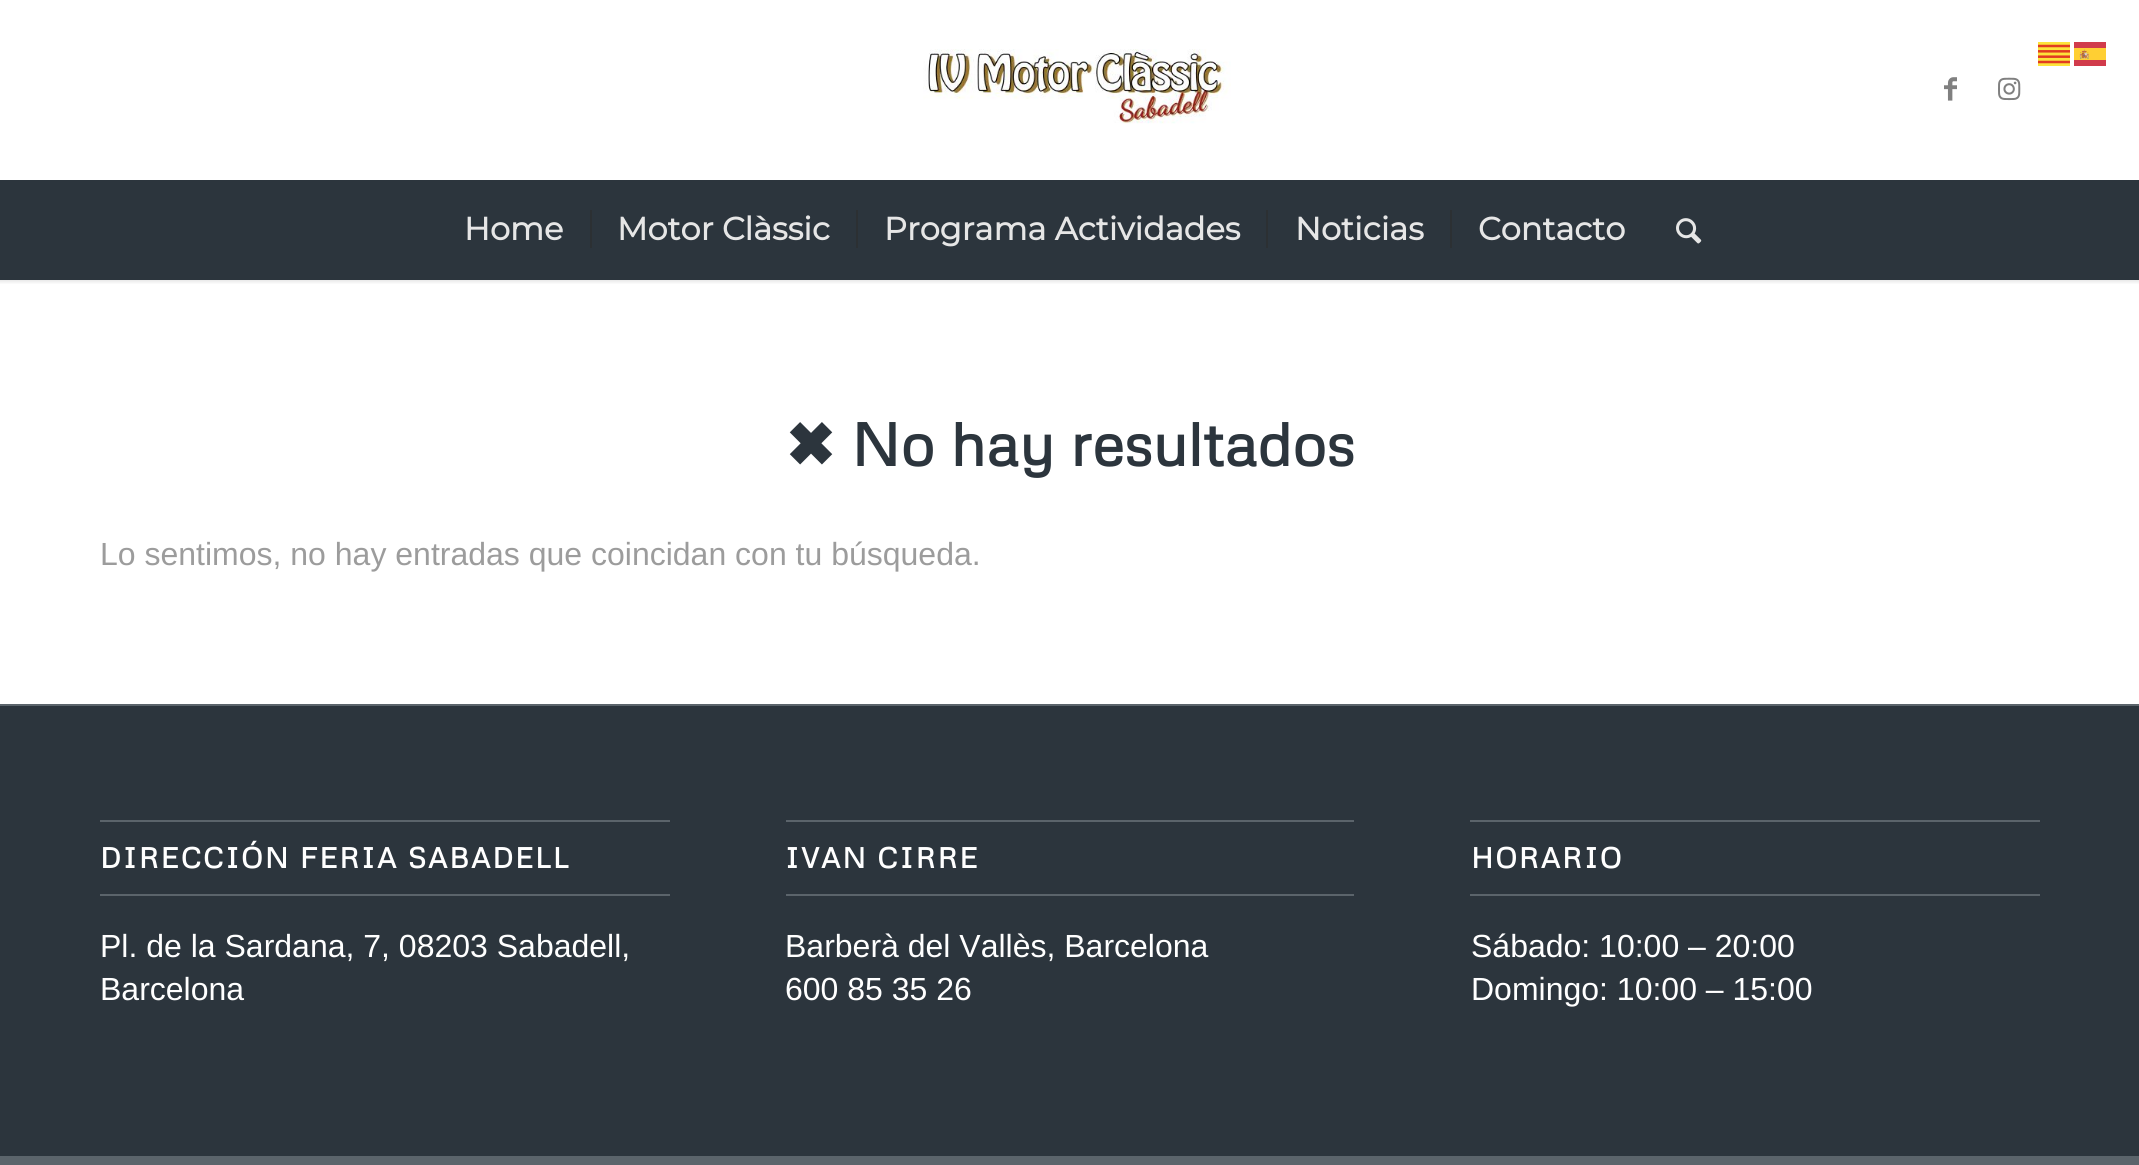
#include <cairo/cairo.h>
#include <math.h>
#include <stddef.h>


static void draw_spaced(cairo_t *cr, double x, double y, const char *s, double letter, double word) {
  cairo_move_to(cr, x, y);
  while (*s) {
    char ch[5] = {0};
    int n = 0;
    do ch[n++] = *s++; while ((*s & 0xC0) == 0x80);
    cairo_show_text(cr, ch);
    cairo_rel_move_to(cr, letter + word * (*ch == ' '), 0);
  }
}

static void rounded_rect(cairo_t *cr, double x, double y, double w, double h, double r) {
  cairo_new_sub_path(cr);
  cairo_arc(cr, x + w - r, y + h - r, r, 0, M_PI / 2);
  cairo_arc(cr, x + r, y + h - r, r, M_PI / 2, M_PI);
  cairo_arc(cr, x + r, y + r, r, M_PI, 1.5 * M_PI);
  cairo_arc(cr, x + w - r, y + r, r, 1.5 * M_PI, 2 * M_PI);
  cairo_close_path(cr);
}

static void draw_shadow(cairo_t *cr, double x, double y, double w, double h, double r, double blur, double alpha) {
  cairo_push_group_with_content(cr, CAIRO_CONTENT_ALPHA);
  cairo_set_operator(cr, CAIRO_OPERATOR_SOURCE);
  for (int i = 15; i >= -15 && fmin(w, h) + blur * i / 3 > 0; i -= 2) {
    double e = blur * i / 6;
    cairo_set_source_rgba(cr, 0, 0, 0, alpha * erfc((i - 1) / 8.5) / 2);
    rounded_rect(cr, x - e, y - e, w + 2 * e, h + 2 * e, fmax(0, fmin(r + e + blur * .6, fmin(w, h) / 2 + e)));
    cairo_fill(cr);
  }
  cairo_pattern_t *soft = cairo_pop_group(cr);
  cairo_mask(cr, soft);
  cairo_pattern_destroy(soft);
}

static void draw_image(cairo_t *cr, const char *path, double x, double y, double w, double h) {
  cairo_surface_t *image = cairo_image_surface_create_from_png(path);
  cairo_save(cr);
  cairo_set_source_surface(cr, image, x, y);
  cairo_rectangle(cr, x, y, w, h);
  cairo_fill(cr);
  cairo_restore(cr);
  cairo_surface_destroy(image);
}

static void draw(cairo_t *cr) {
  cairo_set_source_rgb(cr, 1, 1, 1);
  cairo_paint(cr);
  cairo_save(cr);
  cairo_rectangle(cr, 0, 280, 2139, 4);
  cairo_clip(cr);
  cairo_set_source_rgb(cr, 0, 0, 0);
  draw_shadow(cr, -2, -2, 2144, 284, 0, 2, 0.1);
  cairo_restore(cr);
  draw_image(cr, "images/1.png", 2038, 42, 32, 24);
  draw_image(cr, "images/2.png", 2074, 42, 32, 24);
  draw_image(cr, "images/3.png", 923, 49, 308, 75);
  draw_image(cr, "images/4.png", 1944, 77, 13, 24);
  draw_image(cr, "images/5.png", 1998, 77, 23, 24);
  cairo_set_source_rgb(cr, 44 / 255.0, 53 / 255.0, 61 / 255.0);
  cairo_rectangle(cr, 0, 180, 2139, 100);
  cairo_fill(cr);
  cairo_set_source_rgb(cr, 44 / 255.0, 48 / 255.0, 51 / 255.0);
  cairo_rectangle(cr, 590, 210, 2, 38);
  cairo_fill(cr);
  cairo_rectangle(cr, 856, 210, 2, 38);
  cairo_fill(cr);
  cairo_rectangle(cr, 1266, 210, 2, 38);
  cairo_fill(cr);
  cairo_rectangle(cr, 1450, 210, 2, 38);
  cairo_fill(cr);
  draw_image(cr, "images/6.png", 1676, 218, 26, 26);
  cairo_set_source_rgb(cr, 44 / 255.0, 53 / 255.0, 61 / 255.0);
  cairo_rectangle(cr, 0, 706, 2139, 450);
  cairo_fill(cr);
  cairo_set_source_rgb(cr, 91 / 255.0, 100 / 255.0, 107 / 255.0);
  cairo_rectangle(cr, 0, 704, 2139, 2);
  cairo_fill(cr);
  cairo_rectangle(cr, 100, 820, 570, 2);
  cairo_fill(cr);
  cairo_rectangle(cr, 100, 894, 570, 2);
  cairo_fill(cr);
  cairo_rectangle(cr, 786, 820, 568, 2);
  cairo_fill(cr);
  cairo_rectangle(cr, 786, 894, 568, 2);
  cairo_fill(cr);
  cairo_rectangle(cr, 1470, 820, 570, 2);
  cairo_fill(cr);
  cairo_rectangle(cr, 1470, 894, 570, 2);
  cairo_fill(cr);
  cairo_rectangle(cr, 0, 1156, 2139, 9);
  cairo_fill(cr);
  cairo_select_font_face(cr, "Montserrat", CAIRO_FONT_SLANT_NORMAL, CAIRO_FONT_WEIGHT_BOLD);
  cairo_set_font_size(cr, 32);
  cairo_set_source_rgb(cr, 230 / 255.0, 230 / 255.0, 230 / 255.0);
  cairo_move_to(cr, 464, 240);
  cairo_show_text(cr, "Home");
  cairo_move_to(cr, 617, 240);
  cairo_show_text(cr, "Motor Clàssic");
  cairo_move_to(cr, 884, 240);
  cairo_show_text(cr, "Programa Actividades");
  cairo_move_to(cr, 1295, 240);
  cairo_show_text(cr, "Noticias");
  cairo_move_to(cr, 1478, 240);
  cairo_show_text(cr, "Contacto");
  cairo_select_font_face(cr, "DejaVu Sans", CAIRO_FONT_SLANT_NORMAL, CAIRO_FONT_WEIGHT_BOLD);
  cairo_set_font_size(cr, 60);
  cairo_set_source_rgb(cr, 44 / 255.0, 53 / 255.0, 61 / 255.0);
  cairo_move_to(cr, 785, 466);
  cairo_show_text(cr, "✖");
  cairo_select_font_face(cr, "Metrophobic", CAIRO_FONT_SLANT_NORMAL, CAIRO_FONT_WEIGHT_BOLD);
  cairo_move_to(cr, 851, 466);
  cairo_show_text(cr, "No hay resultados");
  cairo_select_font_face(cr, "Liberation Sans", CAIRO_FONT_SLANT_NORMAL, CAIRO_FONT_WEIGHT_NORMAL);
  cairo_set_font_size(cr, 32);
  cairo_set_source_rgb(cr, 156 / 255.0, 156 / 255.0, 156 / 255.0);
  cairo_move_to(cr, 100, 565);
  cairo_show_text(cr, "Lo sentimos, no hay entradas que coincidan con tu búsqueda.");
  cairo_select_font_face(cr, "Metrophobic", CAIRO_FONT_SLANT_NORMAL, CAIRO_FONT_WEIGHT_BOLD);
  cairo_set_font_size(cr, 28.6);
  cairo_set_source_rgb(cr, 1, 1, 1);
  draw_spaced(cr, 100, 868, "DIRECCIÓN FERIA SABADELL", 2, 0);
  cairo_select_font_face(cr, "Liberation Sans", CAIRO_FONT_SLANT_NORMAL, CAIRO_FONT_WEIGHT_NORMAL);
  cairo_set_font_size(cr, 32);
  cairo_move_to(cr, 100, 957);
  cairo_show_text(cr, "Pl. de la Sardana, 7, 08203 Sabadell,");
  cairo_move_to(cr, 100, 1000);
  cairo_show_text(cr, "Barcelona");
  cairo_select_font_face(cr, "Metrophobic", CAIRO_FONT_SLANT_NORMAL, CAIRO_FONT_WEIGHT_BOLD);
  cairo_set_font_size(cr, 28.6);
  draw_spaced(cr, 785, 868, "IVAN CIRRE", 2, 0);
  cairo_select_font_face(cr, "Liberation Sans", CAIRO_FONT_SLANT_NORMAL, CAIRO_FONT_WEIGHT_NORMAL);
  cairo_set_font_size(cr, 32);
  cairo_move_to(cr, 785, 957);
  cairo_show_text(cr, "Barberà del Vallès, Barcelona");
  cairo_move_to(cr, 785, 1000);
  cairo_show_text(cr, "600 85 35 26");
  cairo_select_font_face(cr, "Metrophobic", CAIRO_FONT_SLANT_NORMAL, CAIRO_FONT_WEIGHT_BOLD);
  cairo_set_font_size(cr, 28.6);
  draw_spaced(cr, 1471, 868, "HORARIO", 2, 0);
  cairo_select_font_face(cr, "Liberation Sans", CAIRO_FONT_SLANT_NORMAL, CAIRO_FONT_WEIGHT_NORMAL);
  cairo_set_font_size(cr, 32);
  cairo_move_to(cr, 1471, 957);
  cairo_show_text(cr, "Sábado: 10:00 – 20:00");
  cairo_move_to(cr, 1471, 1000);
  cairo_show_text(cr, "Domingo: 10:00 – 15:00");
}

int main(void) {
  cairo_surface_t *surface = cairo_image_surface_create(CAIRO_FORMAT_RGB24, 2139, 1165);
  cairo_t *cr = cairo_create(surface);
  cairo_font_options_t *options = cairo_font_options_create();
  cairo_font_options_set_hint_metrics(options, CAIRO_HINT_METRICS_OFF);
  cairo_font_options_set_hint_style(options, CAIRO_HINT_STYLE_NONE);
  cairo_set_font_options(cr, options);
  cairo_set_miter_limit(cr, 4);
  draw(cr);
  cairo_surface_write_to_png(surface, "out.png");
  cairo_font_options_destroy(options);
  cairo_destroy(cr);
  cairo_surface_destroy(surface);
  return 0;
}
